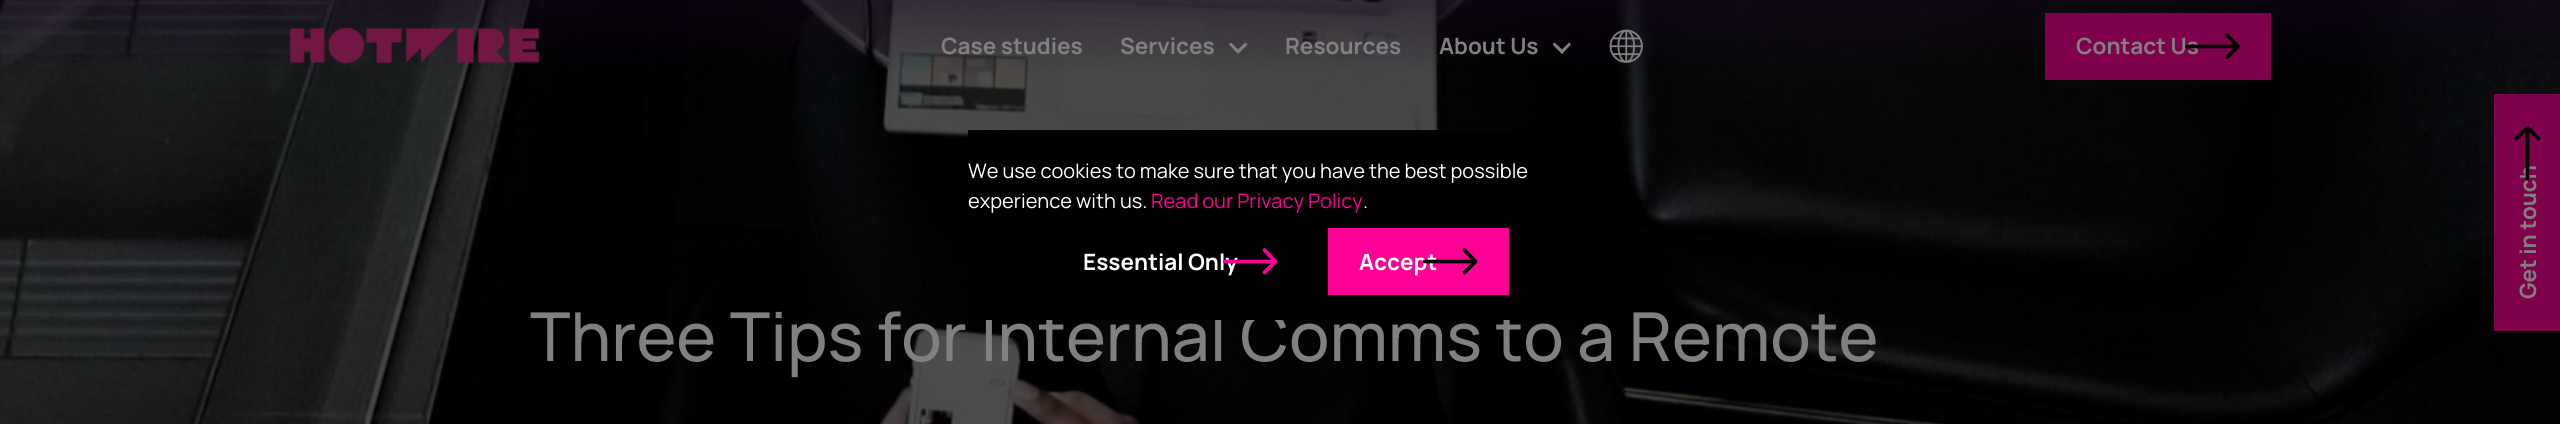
#include <cairo/cairo.h>
#include <math.h>
#include <stddef.h>


static void draw_image(cairo_t *cr, const char *path, double x, double y, double w, double h) {
  cairo_surface_t *image = cairo_image_surface_create_from_png(path);
  cairo_save(cr);
  cairo_set_source_surface(cr, image, x, y);
  cairo_rectangle(cr, x, y, w, h);
  cairo_fill(cr);
  cairo_restore(cr);
  cairo_surface_destroy(image);
}

static void draw(cairo_t *cr) {
  cairo_set_source_rgb(cr, 1, 1, 1);
  cairo_paint(cr);
  draw_image(cr, "images/3.png", 0, 0, 2560, 424);
  draw_image(cr, "images/1.png", 289, 27, 251, 37);
  cairo_set_source_rgb(cr, 128 / 255.0, 128 / 255.0, 128 / 255.0);
  cairo_new_path(cr);
  cairo_move_to(cr, 1229, 44.5);
  cairo_line_to(cr, 1231, 42.5);
  cairo_line_to(cr, 1238, 49.5);
  cairo_line_to(cr, 1245.5, 42.5);
  cairo_line_to(cr, 1247.5, 44.5);
  cairo_line_to(cr, 1238, 54);
  cairo_close_path(cr);
  cairo_fill(cr);
  cairo_new_path(cr);
  cairo_move_to(cr, 1552.5, 44.5);
  cairo_line_to(cr, 1554.5, 42.5);
  cairo_line_to(cr, 1562, 49.5);
  cairo_line_to(cr, 1569, 42.5);
  cairo_line_to(cr, 1571, 44.5);
  cairo_line_to(cr, 1562, 54);
  cairo_close_path(cr);
  cairo_fill(cr);
  draw_image(cr, "images/2.png", 1609, 29, 34, 34);
  cairo_set_source_rgb(cr, 127 / 255.0, 0, 75 / 255.0);
  cairo_rectangle(cr, 2045, 13, 226, 67);
  cairo_fill(cr);
  cairo_rectangle(cr, 2494, 94, 66, 237);
  cairo_fill(cr);
  cairo_select_font_face(cr, "Manrope", CAIRO_FONT_SLANT_NORMAL, CAIRO_FONT_WEIGHT_BOLD);
  cairo_set_font_size(cr, 22.5);
  cairo_set_source_rgb(cr, 128 / 255.0, 128 / 255.0, 128 / 255.0);
  cairo_move_to(cr, 941, 54);
  cairo_show_text(cr, "Case studies");
  cairo_move_to(cr, 1120, 54);
  cairo_show_text(cr, "Services");
  cairo_move_to(cr, 1285, 54);
  cairo_show_text(cr, "Resources");
  cairo_move_to(cr, 1439, 54);
  cairo_show_text(cr, "About Us");
  cairo_move_to(cr, 2076, 54);
  cairo_show_text(cr, "Contact Us");
  cairo_new_path(cr);
  cairo_move_to(cr, 2227, 35);
  cairo_line_to(cr, 2238, 46.5);
  cairo_move_to(cr, 2238, 46.5);
  cairo_line_to(cr, 2227, 57.5);
  cairo_move_to(cr, 2238, 46.5);
  cairo_line_to(cr, 2187, 46.5);
  cairo_set_source_rgb(cr, 0, 0, 0);
  cairo_set_line_width(cr, 3.7);
  cairo_set_line_cap(cr, CAIRO_LINE_CAP_ROUND);
  cairo_set_line_join(cr, CAIRO_LINE_JOIN_ROUND);
  cairo_stroke(cr);
  cairo_set_source_rgb(cr, 128 / 255.0, 128 / 255.0, 128 / 255.0);
  cairo_save(cr);
  cairo_translate(cr, 2536, 299);
  cairo_rotate(cr, -90 * M_PI / 180);
  cairo_move_to(cr, 0, 0);
  cairo_show_text(cr, "Get in touch");
  cairo_restore(cr);
  cairo_new_path(cr);
  cairo_move_to(cr, 2516.5, 138.5);
  cairo_line_to(cr, 2527.5, 127.5);
  cairo_move_to(cr, 2527.5, 127.5);
  cairo_line_to(cr, 2538.5, 138.5);
  cairo_move_to(cr, 2527.5, 127.5);
  cairo_line_to(cr, 2527.5, 178.5);
  cairo_set_source_rgb(cr, 0, 0, 0);
  cairo_stroke(cr);
  cairo_select_font_face(cr, "Manrope Medium", CAIRO_FONT_SLANT_NORMAL, CAIRO_FONT_WEIGHT_NORMAL);
  cairo_set_font_size(cr, 67.5);
  cairo_set_source_rgb(cr, 128 / 255.0, 128 / 255.0, 128 / 255.0);
  cairo_move_to(cr, 530, 361);
  cairo_show_text(cr, "Three Tips for Internal Comms to a Remote");
  cairo_set_source_rgb(cr, 0, 0, 0);
  cairo_rectangle(cr, 968, 130, 620, 190);
  cairo_fill(cr);
  cairo_set_source_rgb(cr, 253 / 255.0, 0, 149 / 255.0);
  cairo_rectangle(cr, 1328, 228, 181, 67);
  cairo_fill(cr);
  cairo_select_font_face(cr, "Manrope", CAIRO_FONT_SLANT_NORMAL, CAIRO_FONT_WEIGHT_BOLD);
  cairo_set_font_size(cr, 22.5);
  cairo_set_source_rgb(cr, 1, 1, 1);
  cairo_move_to(cr, 1359, 270);
  cairo_show_text(cr, "Accept");
  cairo_save(cr);
  cairo_rectangle(cr, 1423, 248, 55, 27);
  cairo_clip(cr);
  cairo_new_path(cr);
  cairo_move_to(cr, 1464.5, 250);
  cairo_line_to(cr, 1475.5, 261.5);
  cairo_move_to(cr, 1475.5, 261.5);
  cairo_line_to(cr, 1464.5, 272.5);
  cairo_move_to(cr, 1475.5, 261.5);
  cairo_line_to(cr, 1424.5, 261.5);
  cairo_set_source_rgb(cr, 0, 0, 0);
  cairo_stroke(cr);
  cairo_restore(cr);
  cairo_move_to(cr, 1083, 270);
  cairo_show_text(cr, "Essential Only");
  cairo_save(cr);
  cairo_rectangle(cr, 1223, 248, 55, 27);
  cairo_clip(cr);
  cairo_new_path(cr);
  cairo_move_to(cr, 1264.5, 250);
  cairo_line_to(cr, 1275.5, 261.5);
  cairo_move_to(cr, 1275.5, 261.5);
  cairo_line_to(cr, 1264.5, 272.5);
  cairo_move_to(cr, 1275.5, 261.5);
  cairo_line_to(cr, 1224.5, 261.5);
  cairo_set_source_rgb(cr, 253 / 255.0, 0, 149 / 255.0);
  cairo_stroke(cr);
  cairo_restore(cr);
  cairo_select_font_face(cr, "Manrope", CAIRO_FONT_SLANT_NORMAL, CAIRO_FONT_WEIGHT_NORMAL);
  cairo_set_font_size(cr, 20);
  cairo_move_to(cr, 1363, 208);
  cairo_show_text(cr, ".");
  cairo_set_source_rgb(cr, 253 / 255.0, 0, 149 / 255.0);
  cairo_move_to(cr, 1151, 208);
  cairo_show_text(cr, "Read our Privacy Policy");
  cairo_set_source_rgb(cr, 1, 1, 1);
  cairo_move_to(cr, 968, 208);
  cairo_show_text(cr, "experience with us.");
  cairo_move_to(cr, 968, 178);
  cairo_show_text(cr, "We use cookies to make sure that you have the best possible");
}

int main(void) {
  cairo_surface_t *surface = cairo_image_surface_create(CAIRO_FORMAT_RGB24, 2560, 424);
  cairo_t *cr = cairo_create(surface);
  cairo_font_options_t *options = cairo_font_options_create();
  cairo_font_options_set_hint_metrics(options, CAIRO_HINT_METRICS_OFF);
  cairo_font_options_set_hint_style(options, CAIRO_HINT_STYLE_NONE);
  cairo_set_font_options(cr, options);
  cairo_set_miter_limit(cr, 4);
  draw(cr);
  cairo_surface_write_to_png(surface, "out.png");
  cairo_font_options_destroy(options);
  cairo_destroy(cr);
  cairo_surface_destroy(surface);
  return 0;
}
